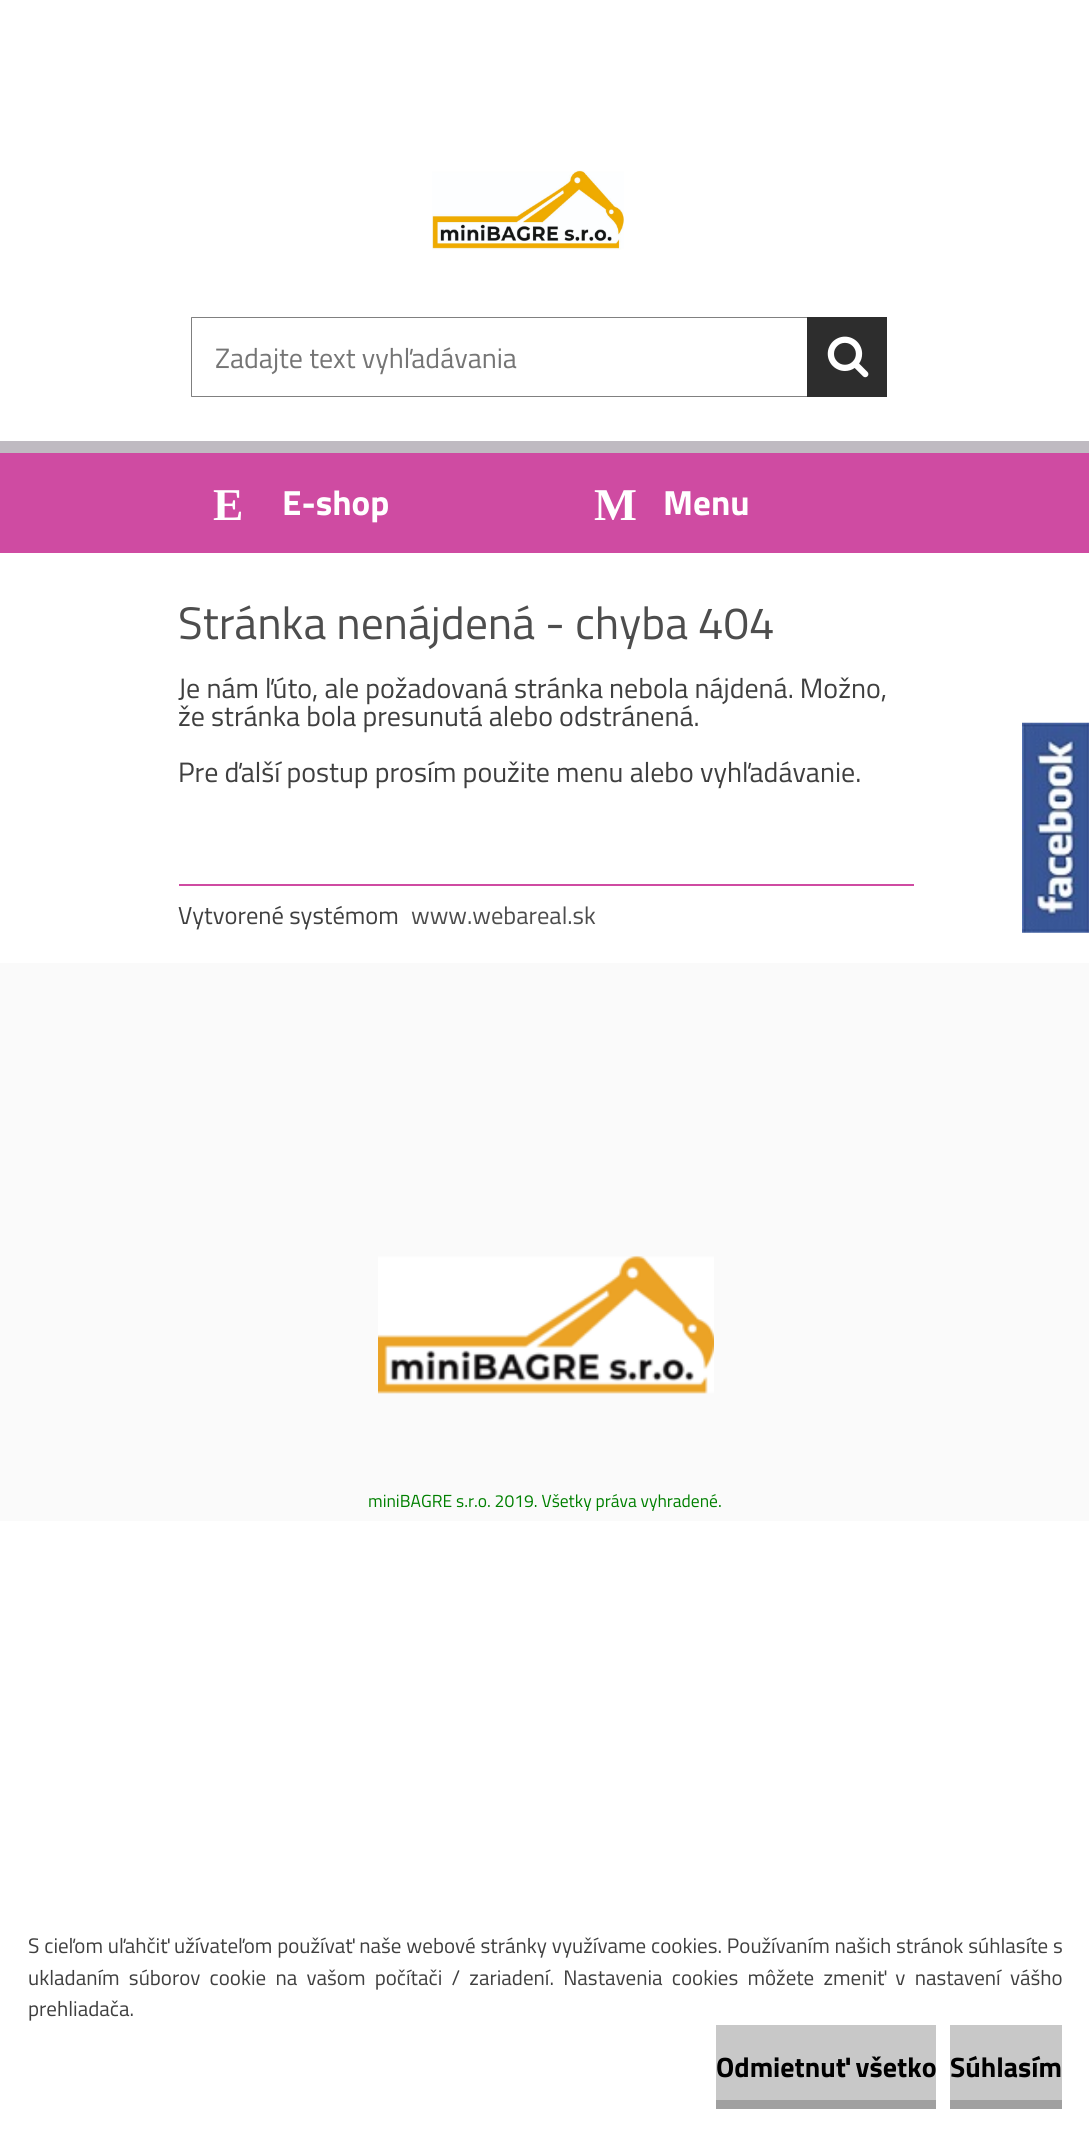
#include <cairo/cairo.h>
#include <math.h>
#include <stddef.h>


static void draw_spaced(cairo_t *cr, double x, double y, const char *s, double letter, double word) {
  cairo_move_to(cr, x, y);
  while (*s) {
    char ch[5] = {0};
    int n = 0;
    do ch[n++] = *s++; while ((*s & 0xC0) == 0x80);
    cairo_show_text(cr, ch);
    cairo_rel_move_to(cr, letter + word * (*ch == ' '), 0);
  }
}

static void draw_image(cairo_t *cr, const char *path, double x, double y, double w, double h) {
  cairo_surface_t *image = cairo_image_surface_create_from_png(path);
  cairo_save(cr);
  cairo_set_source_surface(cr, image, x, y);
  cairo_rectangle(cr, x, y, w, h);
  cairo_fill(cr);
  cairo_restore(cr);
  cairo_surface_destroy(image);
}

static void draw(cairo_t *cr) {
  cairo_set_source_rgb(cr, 1, 1, 1);
  cairo_paint(cr);
  cairo_set_source_rgb(cr, 250 / 255.0, 250 / 255.0, 250 / 255.0);
  cairo_rectangle(cr, 0, 963, 1089, 558);
  cairo_fill(cr);
  cairo_set_source_rgb(cr, 207 / 255.0, 75 / 255.0, 162 / 255.0);
  cairo_rectangle(cr, 0, 453, 1089, 100);
  cairo_fill(cr);
  cairo_set_source_rgb(cr, 191 / 255.0, 186 / 255.0, 193 / 255.0);
  cairo_rectangle(cr, 0, 441, 1089, 12);
  cairo_fill(cr);
  draw_image(cr, "images/1.png", 432, 170, 192, 80);
  cairo_set_source_rgb(cr, 128 / 255.0, 128 / 255.0, 128 / 255.0);
  cairo_new_path(cr);
  cairo_move_to(cr, 191, 317);
  cairo_line_to(cr, 807, 317);
  cairo_line_to(cr, 807, 318);
  cairo_line_to(cr, 192, 318);
  cairo_close_path(cr);
  cairo_fill(cr);
  cairo_new_path(cr);
  cairo_move_to(cr, 807, 397);
  cairo_line_to(cr, 191, 397);
  cairo_line_to(cr, 192, 396);
  cairo_line_to(cr, 807, 396);
  cairo_close_path(cr);
  cairo_fill(cr);
  cairo_set_source_rgba(cr, 0, 0, 0, 0.5);
  cairo_new_path(cr);
  cairo_move_to(cr, 191, 397);
  cairo_line_to(cr, 191, 317);
  cairo_line_to(cr, 192, 318);
  cairo_line_to(cr, 192, 396);
  cairo_close_path(cr);
  cairo_fill(cr);
  cairo_set_source_rgb(cr, 45 / 255.0, 45 / 255.0, 45 / 255.0);
  cairo_rectangle(cr, 807, 317, 80, 80);
  cairo_fill(cr);
  draw_image(cr, "images/2.png", 827, 336, 42, 42);
  cairo_set_source_rgb(cr, 207 / 255.0, 75 / 255.0, 162 / 255.0);
  cairo_rectangle(cr, 179, 884, 735, 2);
  cairo_fill(cr);
  draw_image(cr, "images/3.png", 1022, 722, 67, 211);
  draw_image(cr, "images/4.png", 378, 1255, 336, 139);
  cairo_set_source_rgb(cr, 200 / 255.0, 200 / 255.0, 200 / 255.0);
  cairo_rectangle(cr, 716, 2025, 220, 75);
  cairo_fill(cr);
  cairo_set_source_rgb(cr, 160 / 255.0, 160 / 255.0, 160 / 255.0);
  cairo_rectangle(cr, 716, 2100, 220, 9);
  cairo_fill(cr);
  cairo_set_source_rgb(cr, 200 / 255.0, 200 / 255.0, 200 / 255.0);
  cairo_rectangle(cr, 950, 2025, 112, 75);
  cairo_fill(cr);
  cairo_set_source_rgb(cr, 160 / 255.0, 160 / 255.0, 160 / 255.0);
  cairo_rectangle(cr, 950, 2100, 112, 9);
  cairo_fill(cr);
  cairo_select_font_face(cr, "Titillium Web", CAIRO_FONT_SLANT_NORMAL, CAIRO_FONT_WEIGHT_NORMAL);
  cairo_set_font_size(cr, 28);
  cairo_set_source_rgb(cr, 117 / 255.0, 117 / 255.0, 117 / 255.0);
  cairo_move_to(cr, 215, 368);
  cairo_show_text(cr, "Zadajte text vyhľadávania");
  cairo_select_font_face(cr, "Liberation Serif", CAIRO_FONT_SLANT_NORMAL, CAIRO_FONT_WEIGHT_BOLD);
  cairo_set_font_size(cr, 45.5);
  cairo_set_source_rgb(cr, 1, 1, 1);
  cairo_move_to(cr, 213, 520);
  cairo_show_text(cr, "E");
  cairo_select_font_face(cr, "Titillium Web", CAIRO_FONT_SLANT_NORMAL, CAIRO_FONT_WEIGHT_BOLD);
  cairo_set_font_size(cr, 35);
  cairo_move_to(cr, 282, 515);
  cairo_show_text(cr, "E-shop");
  cairo_select_font_face(cr, "Liberation Serif", CAIRO_FONT_SLANT_NORMAL, CAIRO_FONT_WEIGHT_BOLD);
  cairo_set_font_size(cr, 45.5);
  cairo_move_to(cr, 594, 520);
  cairo_show_text(cr, "M");
  cairo_select_font_face(cr, "Titillium Web", CAIRO_FONT_SLANT_NORMAL, CAIRO_FONT_WEIGHT_BOLD);
  cairo_set_font_size(cr, 35);
  cairo_move_to(cr, 663, 515);
  cairo_show_text(cr, "Menu");
  cairo_select_font_face(cr, "Titillium Web", CAIRO_FONT_SLANT_NORMAL, CAIRO_FONT_WEIGHT_NORMAL);
  cairo_set_font_size(cr, 45.5);
  cairo_set_source_rgb(cr, 77 / 255.0, 77 / 255.0, 77 / 255.0);
  cairo_move_to(cr, 178, 639);
  cairo_show_text(cr, "Stránka nenájdená - chyba 404");
  cairo_set_font_size(cr, 28);
  cairo_set_source_rgb(cr, 63 / 255.0, 63 / 255.0, 63 / 255.0);
  cairo_move_to(cr, 178, 698);
  cairo_show_text(cr, "Je nám ľúto, ale požadovaná stránka nebola nájdená. Možno,");
  cairo_move_to(cr, 178, 726);
  cairo_show_text(cr, "že stránka bola presunutá alebo odstránená.");
  cairo_move_to(cr, 178, 782);
  cairo_show_text(cr, "Pre ďalší postup prosím použite menu alebo vyhľadávanie.");
  cairo_set_font_size(cr, 24.5);
  cairo_move_to(cr, 178, 924);
  cairo_show_text(cr, "Vytvorené systémom");
  cairo_set_source_rgb(cr, 77 / 255.0, 77 / 255.0, 77 / 255.0);
  cairo_move_to(cr, 411, 924);
  cairo_show_text(cr, "www.webareal.sk");
  cairo_set_font_size(cr, 17.5);
  cairo_set_source_rgb(cr, 0, 128 / 255.0, 0);
  cairo_move_to(cr, 368, 1507);
  cairo_show_text(cr, "miniBAGRE s.r.o. 2019. Všetky práva vyhradené.");
  cairo_set_font_size(cr, 21);
  cairo_set_source_rgb(cr, 63 / 255.0, 63 / 255.0, 63 / 255.0);
  draw_spaced(cr, 28, 1953, "S cieľom uľahčiť užívateľom používať naše webové stránky využívame cookies. Používaním našich stránok súhlasíte s", 0, 0.25);
  draw_spaced(cr, 28, 1985, "ukladaním súborov cookie na vašom počítači / zariadení. Nastavenia cookies môžete zmeniť v nastavení vášho", 0, 4.6);
  cairo_move_to(cr, 28, 2016);
  cairo_show_text(cr, "prehliadača.");
  cairo_select_font_face(cr, "Titillium Web", CAIRO_FONT_SLANT_NORMAL, CAIRO_FONT_WEIGHT_BOLD);
  cairo_set_font_size(cr, 28);
  cairo_set_source_rgb(cr, 0, 0, 0);
  cairo_move_to(cr, 716, 2077);
  cairo_show_text(cr, "Odmietnuť všetko");
  cairo_move_to(cr, 950, 2077);
  cairo_show_text(cr, "Súhlasím");
}

int main(void) {
  cairo_surface_t *surface = cairo_image_surface_create(CAIRO_FORMAT_RGB24, 1089, 2136);
  cairo_t *cr = cairo_create(surface);
  cairo_font_options_t *options = cairo_font_options_create();
  cairo_font_options_set_hint_metrics(options, CAIRO_HINT_METRICS_OFF);
  cairo_font_options_set_hint_style(options, CAIRO_HINT_STYLE_NONE);
  cairo_set_font_options(cr, options);
  cairo_set_miter_limit(cr, 4);
  draw(cr);
  cairo_surface_write_to_png(surface, "out.png");
  cairo_font_options_destroy(options);
  cairo_destroy(cr);
  cairo_surface_destroy(surface);
  return 0;
}
